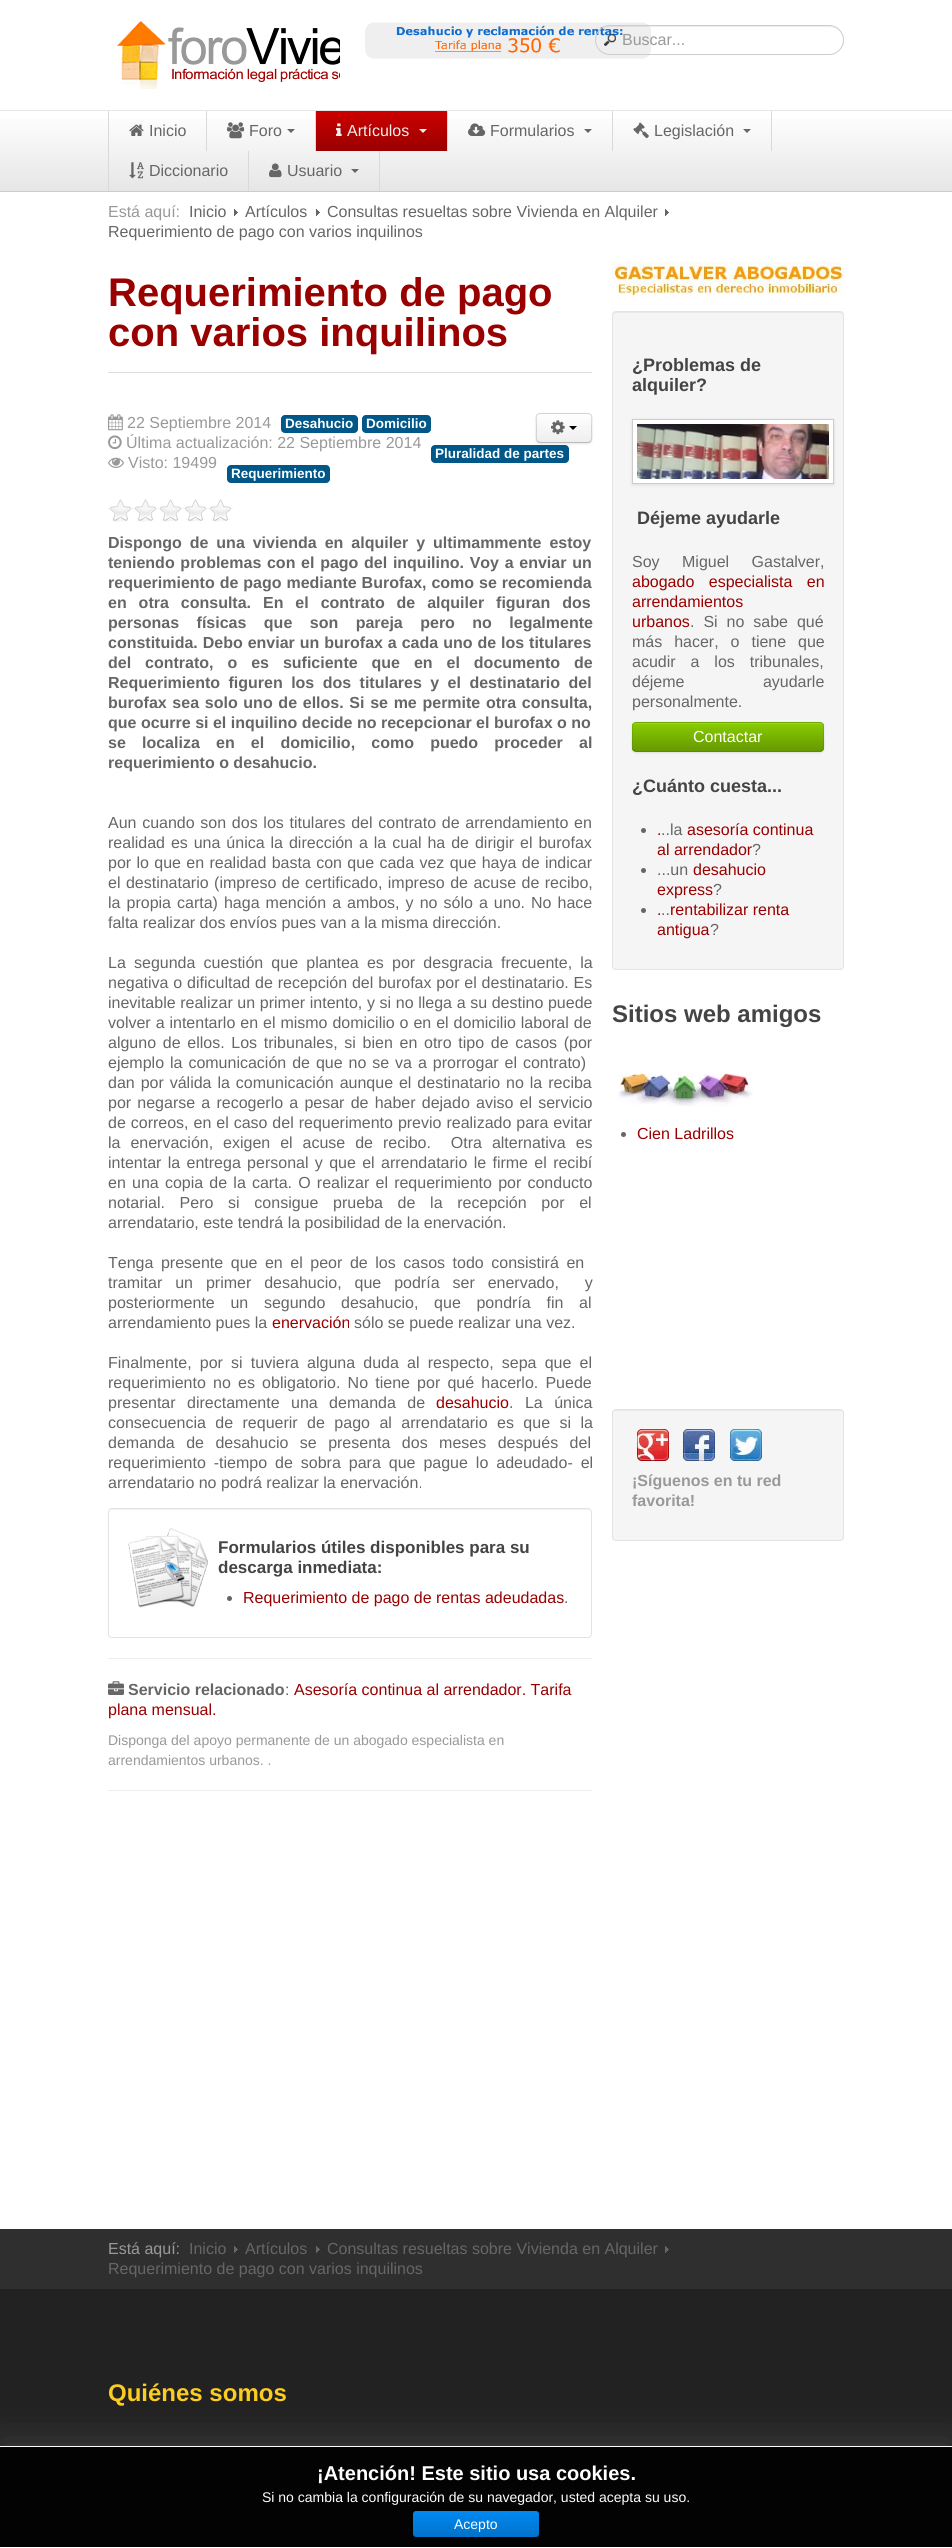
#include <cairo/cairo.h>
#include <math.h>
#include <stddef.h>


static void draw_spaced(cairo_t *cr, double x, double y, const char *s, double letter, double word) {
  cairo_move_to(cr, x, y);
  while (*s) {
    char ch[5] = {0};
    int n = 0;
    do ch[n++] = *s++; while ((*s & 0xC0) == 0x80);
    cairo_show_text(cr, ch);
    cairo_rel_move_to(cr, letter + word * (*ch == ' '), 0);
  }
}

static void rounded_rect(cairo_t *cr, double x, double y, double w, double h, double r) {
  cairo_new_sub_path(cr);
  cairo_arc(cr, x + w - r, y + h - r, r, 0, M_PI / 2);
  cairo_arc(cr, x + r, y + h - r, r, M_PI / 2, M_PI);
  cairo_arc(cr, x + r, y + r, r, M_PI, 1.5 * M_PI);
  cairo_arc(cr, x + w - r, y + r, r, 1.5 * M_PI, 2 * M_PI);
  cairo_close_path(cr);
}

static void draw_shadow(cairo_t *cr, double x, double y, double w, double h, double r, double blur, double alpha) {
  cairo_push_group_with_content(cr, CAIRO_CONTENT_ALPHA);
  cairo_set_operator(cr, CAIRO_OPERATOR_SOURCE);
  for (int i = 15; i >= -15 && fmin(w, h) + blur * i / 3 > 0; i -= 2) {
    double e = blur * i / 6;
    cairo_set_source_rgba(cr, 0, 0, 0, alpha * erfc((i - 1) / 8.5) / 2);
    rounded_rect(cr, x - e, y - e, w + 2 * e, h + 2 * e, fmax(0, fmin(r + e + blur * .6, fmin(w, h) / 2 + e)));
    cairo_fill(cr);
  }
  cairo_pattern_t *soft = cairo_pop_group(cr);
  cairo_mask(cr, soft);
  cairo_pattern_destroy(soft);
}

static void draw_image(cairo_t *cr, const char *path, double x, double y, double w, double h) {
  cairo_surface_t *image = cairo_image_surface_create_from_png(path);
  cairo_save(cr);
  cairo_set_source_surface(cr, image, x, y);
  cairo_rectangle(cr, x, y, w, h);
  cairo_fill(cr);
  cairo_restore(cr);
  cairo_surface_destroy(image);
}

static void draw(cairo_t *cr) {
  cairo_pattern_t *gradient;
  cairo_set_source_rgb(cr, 1, 1, 1);
  cairo_paint(cr);
  draw_image(cr, "images/1.png", 117, 21, 223, 68);
  draw_image(cr, "images/2.png", 365, 22, 286, 37);
  draw_image(cr, "images/3.png", 604, 34, 12, 12);
  cairo_set_source_rgba(cr, 0, 0, 0, 0.07);
  cairo_new_path(cr);
  cairo_move_to(cr, 610, 27);
  cairo_line_to(cr, 829, 27);
  cairo_curve_to(cr, 837, 27, 843, 33, 843, 40);
  cairo_curve_to(cr, 843, 33, 837, 26, 829, 26);
  cairo_line_to(cr, 610, 26);
  cairo_curve_to(cr, 602, 26, 596, 33, 596, 40);
  cairo_curve_to(cr, 596, 33, 602, 27, 610, 27);
  cairo_close_path(cr);
  cairo_fill(cr);
  rounded_rect(cr, 595.5, 25.5, 248, 29, 14.5);
  cairo_set_source_rgb(cr, 204 / 255.0, 204 / 255.0, 204 / 255.0);
  cairo_set_line_width(cr, 1);
  cairo_stroke(cr);
  gradient = cairo_pattern_create_linear(476, 111, 476, 191);
  cairo_pattern_add_color_stop_rgba(gradient, 0, 1, 1, 1, 1);
  cairo_pattern_add_color_stop_rgba(gradient, 1, 230 / 255.0, 230 / 255.0, 230 / 255.0, 1);
  cairo_set_source(cr, gradient);
  cairo_pattern_destroy(gradient);
  cairo_rectangle(cr, 0, 119, 952, 72);
  cairo_fill(cr);
  cairo_set_source_rgb(cr, 230 / 255.0, 230 / 255.0, 230 / 255.0);
  cairo_rectangle(cr, 0, 110, 952, 1);
  cairo_fill(cr);
  cairo_set_source_rgb(cr, 204 / 255.0, 204 / 255.0, 204 / 255.0);
  cairo_rectangle(cr, 0, 191, 952, 1);
  cairo_fill(cr);
  cairo_set_source_rgb(cr, 217 / 255.0, 217 / 255.0, 217 / 255.0);
  cairo_rectangle(cr, 108, 111, 1, 80);
  cairo_fill(cr);
  cairo_rectangle(cr, 206, 111, 1, 40);
  cairo_fill(cr);
  draw_image(cr, "images/4.png", 129, 124, 15, 12);
  cairo_rectangle(cr, 315, 111, 1, 40);
  cairo_fill(cr);
  draw_image(cr, "images/5.png", 227, 122, 18, 17);
  cairo_set_source_rgb(cr, 102 / 255.0, 102 / 255.0, 102 / 255.0);
  cairo_new_path(cr);
  cairo_move_to(cr, 287, 129);
  cairo_line_to(cr, 295, 129);
  cairo_line_to(cr, 291, 133);
  cairo_close_path(cr);
  cairo_fill(cr);
  gradient = cairo_pattern_create_linear(382, 111, 382, 151);
  cairo_pattern_add_color_stop_rgba(gradient, 0, 204 / 255.0, 0, 0, 1);
  cairo_pattern_add_color_stop_rgba(gradient, 1, 153 / 255.0, 0, 0, 1);
  cairo_set_source(cr, gradient);
  cairo_pattern_destroy(gradient);
  cairo_rectangle(cr, 316, 111, 131, 40);
  cairo_fill(cr);
  cairo_set_source_rgb(cr, 217 / 255.0, 217 / 255.0, 217 / 255.0);
  cairo_rectangle(cr, 447, 111, 1, 40);
  cairo_fill(cr);
  draw_image(cr, "images/6.png", 336, 123, 6, 13);
  cairo_set_source_rgb(cr, 238 / 255.0, 238 / 255.0, 238 / 255.0);
  cairo_new_path(cr);
  cairo_move_to(cr, 419, 129);
  cairo_line_to(cr, 427, 129);
  cairo_line_to(cr, 423, 133);
  cairo_close_path(cr);
  cairo_fill(cr);
  cairo_set_source_rgb(cr, 217 / 255.0, 217 / 255.0, 217 / 255.0);
  cairo_rectangle(cr, 612, 111, 1, 40);
  cairo_fill(cr);
  draw_image(cr, "images/7.png", 468, 123, 18, 13);
  cairo_set_source_rgb(cr, 102 / 255.0, 102 / 255.0, 102 / 255.0);
  cairo_new_path(cr);
  cairo_move_to(cr, 584, 129);
  cairo_line_to(cr, 592, 129);
  cairo_line_to(cr, 588, 133);
  cairo_close_path(cr);
  cairo_fill(cr);
  cairo_set_source_rgb(cr, 217 / 255.0, 217 / 255.0, 217 / 255.0);
  cairo_rectangle(cr, 771, 111, 1, 40);
  cairo_fill(cr);
  draw_image(cr, "images/8.png", 633, 122, 16, 17);
  cairo_set_source_rgb(cr, 102 / 255.0, 102 / 255.0, 102 / 255.0);
  cairo_new_path(cr);
  cairo_move_to(cr, 743, 129);
  cairo_line_to(cr, 751, 129);
  cairo_line_to(cr, 747, 133);
  cairo_close_path(cr);
  cairo_fill(cr);
  cairo_set_source_rgb(cr, 217 / 255.0, 217 / 255.0, 217 / 255.0);
  cairo_rectangle(cr, 248, 151, 1, 40);
  cairo_fill(cr);
  draw_image(cr, "images/9.png", 129, 162, 15, 17);
  cairo_rectangle(cr, 379, 151, 1, 40);
  cairo_fill(cr);
  draw_image(cr, "images/10.png", 269, 163, 13, 15);
  cairo_set_source_rgb(cr, 102 / 255.0, 102 / 255.0, 102 / 255.0);
  cairo_new_path(cr);
  cairo_move_to(cr, 351, 169);
  cairo_line_to(cr, 359, 169);
  cairo_line_to(cr, 355, 173);
  cairo_close_path(cr);
  cairo_fill(cr);
  draw_image(cr, "images/11.png", 234, 209, 4, 7);
  draw_image(cr, "images/11.png", 316, 209, 4, 7);
  draw_image(cr, "images/11.png", 665, 209, 4, 7);
  cairo_set_source_rgb(cr, 34 / 255.0, 34 / 255.0, 34 / 255.0);
  cairo_rectangle(cr, 0, 2289, 952, 258);
  cairo_fill(cr);
  cairo_save(cr);
  cairo_rectangle(cr, 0, 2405, 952, 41);
  cairo_clip(cr);
  cairo_set_source_rgb(cr, 68 / 255.0, 68 / 255.0, 68 / 255.0);
  draw_shadow(cr, 0, 2446, 952, 102, 0, 20, 1);
  cairo_restore(cr);
  cairo_set_source_rgba(cr, 0, 0, 0, 0.9);
  cairo_rectangle(cr, 0, 2447, 952, 100);
  cairo_fill(cr);
  cairo_set_source_rgb(cr, 1, 1, 1);
  cairo_rectangle(cr, 0, 2446, 952, 1);
  cairo_fill(cr);
  gradient = cairo_pattern_create_linear(476, 2511, 476, 2537);
  cairo_pattern_add_color_stop_rgba(gradient, 0, 0, 137 / 255.0, 242 / 255.0, 1);
  cairo_pattern_add_color_stop_rgba(gradient, 1, 0, 114 / 255.0, 202 / 255.0, 1);
  cairo_set_source(cr, gradient);
  cairo_pattern_destroy(gradient);
  rounded_rect(cr, 413, 2511, 126, 26, 3);
  cairo_fill(cr);
  cairo_set_source_rgb(cr, 221 / 255.0, 221 / 255.0, 221 / 255.0);
  cairo_rectangle(cr, 108, 372, 484, 1);
  cairo_fill(cr);
  draw_image(cr, "images/12.png", 108, 414, 15, 17);
  draw_image(cr, "images/13.png", 108, 435, 14, 15);
  draw_image(cr, "images/14.png", 108, 457, 16, 11);
  cairo_set_source_rgb(cr, 0, 87 / 255.0, 136 / 255.0);
  rounded_rect(cr, 431, 445, 138, 18, 4);
  cairo_fill(cr);
  cairo_set_source_rgb(cr, 0, 0, 0);
  draw_shadow(cr, 536, 414, 56, 30, 4, 1, 0.1);
  cairo_set_source_rgb(cr, 248 / 255.0, 248 / 255.0, 248 / 255.0);
  rounded_rect(cr, 536, 413, 56, 30, 4);
  cairo_fill(cr);
  cairo_save(cr);
  rounded_rect(cr, 536, 413, 56, 30, 4);
  cairo_clip(cr);
  gradient = cairo_pattern_create_linear(564, 414, 564, 442);
  cairo_pattern_add_color_stop_rgba(gradient, 0, 1, 1, 1, 1);
  cairo_pattern_add_color_stop_rgba(gradient, 1, 238 / 255.0, 238 / 255.0, 238 / 255.0, 1);
  cairo_set_source(cr, gradient);
  cairo_pattern_destroy(gradient);
  cairo_rectangle(cr, 536, 414, 56, 28);
  cairo_fill(cr);
  cairo_restore(cr);
  cairo_new_path(cr);
  cairo_move_to(cr, 590.5, 441.5);
  cairo_line_to(cr, 588.5, 442.5);
  cairo_line_to(cr, 539.5, 442.5);
  cairo_line_to(cr, 537.5, 441.5);
  cairo_set_source_rgba(cr, 0, 0, 0, 0.25);
  cairo_stroke(cr);
  cairo_new_path(cr);
  cairo_move_to(cr, 537.5, 441.5);
  cairo_curve_to(cr, 535.5, 439.5, 536.5, 431, 536.5, 428);
  cairo_curve_to(cr, 536.5, 413, 533.5, 413.5, 548, 413.5);
  cairo_line_to(cr, 580, 413.5);
  cairo_curve_to(cr, 594.5, 413.5, 591.5, 413, 591.5, 428);
  cairo_curve_to(cr, 591.5, 431, 592.5, 439.5, 590.5, 441.5);
  cairo_set_source_rgba(cr, 0, 0, 0, 0.15);
  cairo_stroke(cr);
  draw_image(cr, "images/15.png", 551, 420, 14, 15);
  cairo_set_source_rgb(cr, 0, 0, 0);
  cairo_new_path(cr);
  cairo_move_to(cr, 569, 426);
  cairo_line_to(cr, 577, 426);
  cairo_line_to(cr, 573, 430);
  cairo_close_path(cr);
  cairo_fill(cr);
  cairo_set_source_rgb(cr, 0, 87 / 255.0, 136 / 255.0);
  rounded_rect(cr, 281, 415, 77, 18, 4);
  cairo_fill(cr);
  rounded_rect(cr, 362, 415, 69, 18, 4);
  cairo_fill(cr);
  rounded_rect(cr, 227, 465, 103, 18, 4);
  cairo_fill(cr);
  draw_image(cr, "images/16.png", 108, 499, 125, 23);
  cairo_set_source_rgb(cr, 242 / 255.0, 242 / 255.0, 242 / 255.0);
  cairo_new_path(cr);
  cairo_move_to(cr, 112, 1510);
  cairo_line_to(cr, 588, 1510);
  cairo_curve_to(cr, 590, 1510, 591, 1511, 591, 1513);
  cairo_line_to(cr, 591, 1512);
  cairo_curve_to(cr, 591, 1510, 590, 1509, 588, 1509);
  cairo_line_to(cr, 112, 1509);
  cairo_curve_to(cr, 110, 1509, 109, 1510, 109, 1512);
  cairo_line_to(cr, 109, 1513);
  cairo_curve_to(cr, 109, 1511, 110, 1510, 112, 1510);
  cairo_close_path(cr);
  cairo_fill(cr);
  rounded_rect(cr, 108.5, 1508.5, 483, 129, 3.5);
  cairo_set_source_rgb(cr, 227 / 255.0, 227 / 255.0, 227 / 255.0);
  cairo_stroke(cr);
  draw_image(cr, "images/17.png", 128, 1528, 80, 80);
  cairo_set_source_rgb(cr, 102 / 255.0, 102 / 255.0, 102 / 255.0);
  cairo_arc(cr, 229.5, 1598.5, 2.5, 0, 2 * M_PI);
  cairo_fill(cr);
  cairo_set_source_rgb(cr, 238 / 255.0, 238 / 255.0, 238 / 255.0);
  cairo_rectangle(cr, 108, 1658, 484, 1);
  cairo_fill(cr);
  draw_image(cr, "images/18.png", 108, 1681, 16, 14);
  cairo_rectangle(cr, 108, 1790, 484, 1);
  cairo_fill(cr);
  draw_image(cr, "images/19.png", 612, 262, 232, 38);
  cairo_set_source_rgb(cr, 245 / 255.0, 245 / 255.0, 245 / 255.0);
  rounded_rect(cr, 612, 311, 232, 659, 4);
  cairo_fill(cr);
  cairo_set_source_rgb(cr, 233 / 255.0, 233 / 255.0, 233 / 255.0);
  cairo_new_path(cr);
  cairo_move_to(cr, 616, 313);
  cairo_line_to(cr, 840, 313);
  cairo_curve_to(cr, 842, 313, 843, 314, 843, 316);
  cairo_curve_to(cr, 843, 314, 842, 312, 840, 312);
  cairo_line_to(cr, 616, 312);
  cairo_curve_to(cr, 614, 312, 613, 314, 613, 316);
  cairo_curve_to(cr, 613, 314, 614, 313, 616, 313);
  cairo_close_path(cr);
  cairo_fill(cr);
  rounded_rect(cr, 612.5, 311.5, 231, 658, 3.5);
  cairo_set_source_rgb(cr, 227 / 255.0, 227 / 255.0, 227 / 255.0);
  cairo_stroke(cr);
  cairo_set_source_rgb(cr, 0, 0, 0);
  draw_shadow(cr, 632, 420, 202, 65, 0, 1.5, 0.1);
  cairo_set_source_rgb(cr, 1, 1, 1);
  cairo_rectangle(cr, 632.5, 419.5, 201, 64);
  cairo_fill_preserve(cr);
  cairo_set_source_rgb(cr, 204 / 255.0, 204 / 255.0, 204 / 255.0);
  cairo_stroke(cr);
  draw_image(cr, "images/20.png", 637, 424, 192, 55);
  cairo_set_source_rgb(cr, 0, 0, 0);
  draw_shadow(cr, 632, 723, 192, 30, 4, 1, 0.1);
  cairo_set_source_rgb(cr, 122 / 255.0, 184 / 255.0, 0);
  rounded_rect(cr, 632, 722, 192, 30, 4);
  cairo_fill(cr);
  cairo_save(cr);
  rounded_rect(cr, 632, 722, 192, 30, 4);
  cairo_clip(cr);
  gradient = cairo_pattern_create_linear(728, 723, 728, 751);
  cairo_pattern_add_color_stop_rgba(gradient, 0, 136 / 255.0, 204 / 255.0, 0, 1);
  cairo_pattern_add_color_stop_rgba(gradient, 1, 102 / 255.0, 153 / 255.0, 0, 1);
  cairo_set_source(cr, gradient);
  cairo_pattern_destroy(gradient);
  cairo_rectangle(cr, 632, 723, 192, 28);
  cairo_fill(cr);
  cairo_restore(cr);
  cairo_set_source_rgb(cr, 159 / 255.0, 213 / 255.0, 51 / 255.0);
  cairo_new_path(cr);
  cairo_move_to(cr, 636, 724);
  cairo_line_to(cr, 820, 724);
  cairo_curve_to(cr, 822, 724, 823, 725, 823, 727);
  cairo_curve_to(cr, 823, 725, 822, 723, 820, 723);
  cairo_line_to(cr, 636, 723);
  cairo_curve_to(cr, 634, 723, 633, 725, 633, 727);
  cairo_curve_to(cr, 633, 725, 634, 724, 636, 724);
  cairo_close_path(cr);
  cairo_fill(cr);
  cairo_new_path(cr);
  cairo_move_to(cr, 822.5, 750.5);
  cairo_line_to(cr, 820.5, 751.5);
  cairo_line_to(cr, 666.5, 751.5);
  cairo_line_to(cr, 636, 751.5);
  cairo_line_to(cr, 633.5, 750.5);
  cairo_set_source_rgba(cr, 0, 0, 0, 0.25);
  cairo_stroke(cr);
  cairo_new_path(cr);
  cairo_move_to(cr, 633.5, 750.5);
  cairo_curve_to(cr, 631.5, 748.5, 632.5, 740, 632.5, 737);
  cairo_line_to(cr, 632.5, 729.5);
  cairo_curve_to(cr, 632.5, 727, 632, 722.5, 636, 722.5);
  cairo_line_to(cr, 820, 722.5);
  cairo_curve_to(cr, 824, 722.5, 823.5, 727, 823.5, 729.5);
  cairo_line_to(cr, 823.5, 737);
  cairo_curve_to(cr, 823.5, 740, 824.5, 748.5, 822.5, 750.5);
  cairo_set_source_rgba(cr, 0, 0, 0, 0.1);
  cairo_stroke(cr);
  cairo_set_source_rgb(cr, 102 / 255.0, 102 / 255.0, 102 / 255.0);
  cairo_arc(cr, 643.5, 830.5, 2.5, 0, 2 * M_PI);
  cairo_fill(cr);
  cairo_arc(cr, 643.5, 870.5, 2.5, 0, 2 * M_PI);
  cairo_fill(cr);
  cairo_arc(cr, 643.5, 910.5, 2.5, 0, 2 * M_PI);
  cairo_fill(cr);
  draw_image(cr, "images/21.png", 618, 1073, 135, 33);
  cairo_arc(cr, 623.5, 1134.5, 2.5, 0, 2 * M_PI);
  cairo_fill(cr);
  cairo_set_source_rgb(cr, 245 / 255.0, 245 / 255.0, 245 / 255.0);
  rounded_rect(cr, 612, 1409, 232, 132, 4);
  cairo_fill(cr);
  cairo_set_source_rgb(cr, 233 / 255.0, 233 / 255.0, 233 / 255.0);
  cairo_new_path(cr);
  cairo_move_to(cr, 616, 1411);
  cairo_line_to(cr, 840, 1411);
  cairo_curve_to(cr, 842, 1411, 843, 1412, 843, 1414);
  cairo_curve_to(cr, 843, 1412, 842, 1410, 840, 1410);
  cairo_line_to(cr, 616, 1410);
  cairo_curve_to(cr, 614, 1410, 613, 1412, 613, 1414);
  cairo_curve_to(cr, 613, 1412, 614, 1411, 616, 1411);
  cairo_close_path(cr);
  cairo_fill(cr);
  rounded_rect(cr, 612.5, 1409.5, 231, 131, 3.5);
  cairo_set_source_rgb(cr, 227 / 255.0, 227 / 255.0, 227 / 255.0);
  cairo_stroke(cr);
  draw_image(cr, "images/22.png", 637, 1429, 32, 32);
  draw_image(cr, "images/23.png", 683, 1429, 32, 32);
  draw_image(cr, "images/24.png", 730, 1429, 32, 32);
  cairo_set_source_rgb(cr, 47 / 255.0, 47 / 255.0, 47 / 255.0);
  cairo_rectangle(cr, 0, 2229, 952, 60);
  cairo_fill(cr);
  draw_image(cr, "images/25.png", 234, 2246, 4, 7);
  draw_image(cr, "images/25.png", 316, 2246, 4, 7);
  draw_image(cr, "images/25.png", 665, 2246, 4, 7);
  cairo_select_font_face(cr, "Liberation Sans", CAIRO_FONT_SLANT_NORMAL, CAIRO_FONT_WEIGHT_NORMAL);
  cairo_set_font_size(cr, 16);
  cairo_set_source_rgb(cr, 153 / 255.0, 153 / 255.0, 153 / 255.0);
  cairo_move_to(cr, 622, 45);
  cairo_show_text(cr, "Buscar...");
  cairo_set_source_rgb(cr, 102 / 255.0, 102 / 255.0, 102 / 255.0);
  cairo_move_to(cr, 149, 136);
  cairo_show_text(cr, "Inicio");
  cairo_move_to(cr, 249, 136);
  cairo_show_text(cr, "Foro");
  cairo_set_source_rgb(cr, 238 / 255.0, 238 / 255.0, 238 / 255.0);
  cairo_move_to(cr, 347, 136);
  cairo_show_text(cr, "Artículos");
  cairo_set_source_rgb(cr, 102 / 255.0, 102 / 255.0, 102 / 255.0);
  cairo_move_to(cr, 490, 136);
  cairo_show_text(cr, "Formularios");
  cairo_move_to(cr, 654, 136);
  cairo_show_text(cr, "Legislación");
  cairo_move_to(cr, 149, 176);
  cairo_show_text(cr, "Diccionario");
  cairo_move_to(cr, 287, 176);
  cairo_show_text(cr, "Usuario");
  cairo_set_source_rgb(cr, 153 / 255.0, 153 / 255.0, 153 / 255.0);
  cairo_move_to(cr, 108, 217);
  cairo_show_text(cr, "Está aquí:");
  cairo_set_source_rgb(cr, 102 / 255.0, 102 / 255.0, 102 / 255.0);
  cairo_move_to(cr, 189, 217);
  cairo_show_text(cr, "Inicio");
  cairo_move_to(cr, 245, 217);
  cairo_show_text(cr, "Artículos");
  cairo_move_to(cr, 327, 217);
  cairo_show_text(cr, "Consultas resueltas sobre Vivienda en Alquiler");
  cairo_move_to(cr, 108, 237);
  cairo_show_text(cr, "Requerimiento de pago con varios inquilinos");
  cairo_select_font_face(cr, "Liberation Sans", CAIRO_FONT_SLANT_NORMAL, CAIRO_FONT_WEIGHT_BOLD);
  cairo_set_font_size(cr, 20);
  cairo_set_source_rgb(cr, 1, 1, 1);
  cairo_move_to(cr, 317, 2480);
  cairo_show_text(cr, "¡Atención! Este sitio usa cookies.");
  cairo_select_font_face(cr, "Liberation Sans", CAIRO_FONT_SLANT_NORMAL, CAIRO_FONT_WEIGHT_NORMAL);
  cairo_set_font_size(cr, 14);
  cairo_move_to(cr, 262, 2502);
  cairo_show_text(cr, "Si no cambia la configuración de su navegador, usted acepta su uso.");
  cairo_move_to(cr, 454, 2529);
  cairo_show_text(cr, "Acepto");
  cairo_select_font_face(cr, "Liberation Sans", CAIRO_FONT_SLANT_NORMAL, CAIRO_FONT_WEIGHT_BOLD);
  cairo_set_font_size(cr, 40);
  cairo_set_source_rgb(cr, 153 / 255.0, 0, 0);
  cairo_move_to(cr, 108, 306);
  cairo_show_text(cr, "Requerimiento de pago");
  cairo_move_to(cr, 108, 346);
  cairo_show_text(cr, "con varios inquilinos");
  cairo_select_font_face(cr, "Liberation Sans", CAIRO_FONT_SLANT_NORMAL, CAIRO_FONT_WEIGHT_NORMAL);
  cairo_set_font_size(cr, 16);
  cairo_set_source_rgb(cr, 153 / 255.0, 153 / 255.0, 153 / 255.0);
  cairo_move_to(cr, 127, 428);
  cairo_show_text(cr, "22 Septiembre 2014");
  cairo_move_to(cr, 126, 448);
  cairo_show_text(cr, "Última actualización: 22 Septiembre 2014");
  cairo_move_to(cr, 128, 468);
  cairo_show_text(cr, "Visto: 19499");
  cairo_select_font_face(cr, "Liberation Sans", CAIRO_FONT_SLANT_NORMAL, CAIRO_FONT_WEIGHT_BOLD);
  cairo_set_font_size(cr, 13.5);
  cairo_set_source_rgb(cr, 1, 1, 1);
  cairo_move_to(cr, 285, 428);
  cairo_show_text(cr, "Desahucio");
  cairo_move_to(cr, 366, 428);
  cairo_show_text(cr, "Domicilio");
  cairo_move_to(cr, 435, 458);
  cairo_show_text(cr, "Pluralidad de partes");
  cairo_move_to(cr, 231, 478);
  cairo_show_text(cr, "Requerimiento");
  cairo_set_font_size(cr, 16);
  cairo_set_source_rgb(cr, 102 / 255.0, 102 / 255.0, 102 / 255.0);
  draw_spaced(cr, 108, 548, "Dispongo de una vivienda en alquiler y ultimammente estoy", 0, 3.5);
  draw_spaced(cr, 108, 568, "teniendo problemas con el pago del inquilino. Voy a enviar un", 0, 1.25);
  draw_spaced(cr, 108, 588, "requerimiento de pago mediante Burofax, como se recomienda", 0, 0.5);
  draw_spaced(cr, 108, 608, "en otra consulta. En el contrato de alquiler figuran dos", 0, 7.5);
  draw_spaced(cr, 108, 628, "personas físicas que son pareja pero no legalmente", 0, 13);
  draw_spaced(cr, 108, 648, "constituida. Debo enviar un burofax a cada uno de los titulares", 0, 0.5);
  draw_spaced(cr, 108, 668, "del contrato, o es suficiente que en el documento de", 0, 9.5);
  draw_spaced(cr, 108, 688, "Requerimiento figuren los dos titulares y el destinatario del", 0, 4);
  draw_spaced(cr, 108, 708, "burofax sea solo uno de ellos. Si se me permite otra consulta,", 0, 1.25);
  cairo_move_to(cr, 108, 728);
  cairo_show_text(cr, "que ocurre si el inquilino decide no recepcionar el burofax o no");
  draw_spaced(cr, 108, 748, "se localiza en el domicilio, como puedo proceder al", 0, 11.75);
  cairo_move_to(cr, 108, 768);
  cairo_show_text(cr, "requerimiento o desahucio.");
  cairo_select_font_face(cr, "Liberation Sans", CAIRO_FONT_SLANT_NORMAL, CAIRO_FONT_WEIGHT_NORMAL);
  draw_spaced(cr, 108, 828, "Aun cuando son dos los titulares del contrato de arrendamiento en", 0, 1.25);
  draw_spaced(cr, 108, 848, "realidad es una única la dirección a la cual ha de dirigir el burofax", 0, 1.5);
  draw_spaced(cr, 108, 868, "por lo que en realidad basta con que cada vez que haya de indicar", 0, 0.9);
  draw_spaced(cr, 108, 888, "el destinatario (impreso de certificado, impreso de acuse de recibo,", 0, 1);
  draw_spaced(cr, 108, 908, "la propia carta) haga mención a ambos, y no sólo a uno. No hace", 0, 1.6);
  cairo_move_to(cr, 108, 928);
  cairo_show_text(cr, "falta realizar dos envíos pues van a la misma dirección.");
  draw_spaced(cr, 108, 968, "La segunda cuestión que plantea es por desgracia frecuente, la", 0, 3.75);
  draw_spaced(cr, 108, 988, "negativa o dificultad de recepción del burofax por el destinatario. Es", 0, 0.4);
  draw_spaced(cr, 108, 1008, "inevitable realizar un primer intento, y si no llega a su destino puede", 0, 0.2);
  draw_spaced(cr, 108, 1028, "volver a intentarlo en el mismo domicilio o en el domicilio laboral de", 0, 0.5);
  draw_spaced(cr, 108, 1048, "alguno de ellos. Los tribunales, si bien en otro tipo de casos (por", 0, 2.25);
  draw_spaced(cr, 108, 1068, "ejemplo la comunicación de que no se va a prorrogar el contrato)", 0, 1.5);
  draw_spaced(cr, 108, 1088, "dan por válida la comunicación aunque el destinatario no la reciba", 0, 1.5);
  draw_spaced(cr, 108, 1108, "por negarse a recogerlo a pesar de haber dejado aviso el servicio", 0, 1.75);
  draw_spaced(cr, 108, 1128, "de correos, en el caso del requerimento previo realizado para evitar", 0, 0.5);
  draw_spaced(cr, 108, 1148, "la enervación, exigen el acuse de recibo.  Otra alternativa es", 0, 5.5);
  draw_spaced(cr, 108, 1168, "intentar la entrega personal y que el arrendatario le firme el recibí", 0, 1.9);
  draw_spaced(cr, 108, 1188, "en una copia de la carta. O realizar el requerimiento por conducto", 0, 1.75);
  draw_spaced(cr, 108, 1208, "notarial. Pero si consigue prueba de la recepción por el", 0, 10.25);
  cairo_move_to(cr, 108, 1228);
  cairo_show_text(cr, "arrendatario, este tendrá la posibilidad de la enervación.");
  draw_spaced(cr, 108, 1268, "Tenga presente que en el peor de los casos todo consistirá en", 0, 3.1);
  draw_spaced(cr, 108, 1288, "tramitar un primer desahucio, que podría ser enervado,  y", 0, 8.5);
  draw_spaced(cr, 108, 1308, "posteriormente un segundo desahucio, que pondría fin al", 0, 11.25);
  cairo_move_to(cr, 108, 1328);
  cairo_show_text(cr, "arrendamiento pues la");
  cairo_set_source_rgb(cr, 153 / 255.0, 0, 0);
  cairo_move_to(cr, 272, 1328);
  cairo_show_text(cr, "enervación");
  cairo_set_source_rgb(cr, 102 / 255.0, 102 / 255.0, 102 / 255.0);
  cairo_move_to(cr, 354, 1328);
  cairo_show_text(cr, "sólo se puede realizar una vez.");
  draw_spaced(cr, 108, 1368, "Finalmente, por si tuviera alguna duda al respecto, sepa que el", 0, 3.75);
  draw_spaced(cr, 108, 1388, "requerimiento no es obligatorio. No tiene por qué hacerlo. Puede", 0, 2.75);
  draw_spaced(cr, 108, 1408, "presentar directamente una demanda de", 0, 7);
  cairo_set_source_rgb(cr, 153 / 255.0, 0, 0);
  cairo_move_to(cr, 436, 1408);
  cairo_show_text(cr, "desahucio");
  cairo_set_source_rgb(cr, 102 / 255.0, 102 / 255.0, 102 / 255.0);
  draw_spaced(cr, 509, 1408, ". La única", 0, 7);
  draw_spaced(cr, 108, 1428, "consecuencia de requerir de pago al arrendatario es que si la", 0, 5);
  draw_spaced(cr, 108, 1448, "demanda de desahucio se presenta dos meses después del", 0, 7);
  draw_spaced(cr, 108, 1468, "requerimiento -tiempo de sobra para que pague lo adeudado- el", 0, 3.5);
  cairo_move_to(cr, 108, 1488);
  cairo_show_text(cr, "arrendatario no podrá realizar la enervación.");
  cairo_select_font_face(cr, "Liberation Sans", CAIRO_FONT_SLANT_NORMAL, CAIRO_FONT_WEIGHT_BOLD);
  cairo_set_font_size(cr, 17);
  cairo_set_source_rgb(cr, 68 / 255.0, 68 / 255.0, 68 / 255.0);
  cairo_move_to(cr, 218, 1553);
  cairo_show_text(cr, "Formularios útiles disponibles para su");
  cairo_move_to(cr, 218, 1573);
  cairo_show_text(cr, "descarga inmediata:");
  cairo_select_font_face(cr, "Liberation Sans", CAIRO_FONT_SLANT_NORMAL, CAIRO_FONT_WEIGHT_NORMAL);
  cairo_set_font_size(cr, 16);
  cairo_set_source_rgb(cr, 153 / 255.0, 0, 0);
  cairo_move_to(cr, 243, 1603);
  cairo_show_text(cr, "Requerimiento de pago de rentas adeudadas");
  cairo_set_source_rgb(cr, 102 / 255.0, 102 / 255.0, 102 / 255.0);
  cairo_move_to(cr, 564, 1603);
  cairo_show_text(cr, ".");
  cairo_select_font_face(cr, "Liberation Sans", CAIRO_FONT_SLANT_NORMAL, CAIRO_FONT_WEIGHT_BOLD);
  cairo_move_to(cr, 128, 1695);
  cairo_show_text(cr, "Servicio relacionado");
  cairo_select_font_face(cr, "Liberation Sans", CAIRO_FONT_SLANT_NORMAL, CAIRO_FONT_WEIGHT_NORMAL);
  cairo_move_to(cr, 285, 1695);
  cairo_show_text(cr, ":");
  cairo_set_source_rgb(cr, 153 / 255.0, 0, 0);
  cairo_move_to(cr, 294, 1695);
  cairo_show_text(cr, "Asesoría continua al arrendador. Tarifa");
  cairo_move_to(cr, 108, 1715);
  cairo_show_text(cr, "plana mensual.");
  cairo_set_font_size(cr, 14);
  cairo_set_source_rgb(cr, 153 / 255.0, 153 / 255.0, 153 / 255.0);
  cairo_move_to(cr, 108, 1745);
  cairo_show_text(cr, "Disponga del apoyo permanente de un abogado especialista en");
  cairo_move_to(cr, 108, 1765);
  cairo_show_text(cr, "arrendamientos urbanos. .");
  cairo_select_font_face(cr, "Liberation Sans", CAIRO_FONT_SLANT_NORMAL, CAIRO_FONT_WEIGHT_BOLD);
  cairo_set_font_size(cr, 18);
  cairo_set_source_rgb(cr, 68 / 255.0, 68 / 255.0, 68 / 255.0);
  cairo_move_to(cr, 632, 371);
  cairo_show_text(cr, "¿Problemas de");
  cairo_move_to(cr, 632, 391);
  cairo_show_text(cr, "alquiler?");
  cairo_move_to(cr, 637, 524);
  cairo_show_text(cr, "Déjeme ayudarle");
  cairo_select_font_face(cr, "Liberation Sans", CAIRO_FONT_SLANT_NORMAL, CAIRO_FONT_WEIGHT_NORMAL);
  cairo_set_font_size(cr, 16);
  cairo_set_source_rgb(cr, 102 / 255.0, 102 / 255.0, 102 / 255.0);
  draw_spaced(cr, 632, 567, "Soy Miguel Gastalver,", 0, 18);
  cairo_set_source_rgb(cr, 153 / 255.0, 0, 0);
  draw_spaced(cr, 632, 587, "abogado especialista en", 0, 10);
  cairo_move_to(cr, 632, 607);
  cairo_show_text(cr, "arrendamientos");
  cairo_move_to(cr, 632, 627);
  cairo_show_text(cr, "urbanos");
  cairo_set_source_rgb(cr, 102 / 255.0, 102 / 255.0, 102 / 255.0);
  draw_spaced(cr, 690, 627, ". Si no sabe qué", 0, 4.5);
  draw_spaced(cr, 632, 647, "más hacer, o tiene que", 0, 7.5);
  draw_spaced(cr, 632, 667, "acudir a los tribunales,", 0, 10.5);
  draw_spaced(cr, 632, 687, "déjeme ayudarle", 0, 74);
  cairo_move_to(cr, 632, 707);
  cairo_show_text(cr, "personalmente.");
  cairo_set_source_rgb(cr, 1, 1, 1);
  cairo_move_to(cr, 693, 742);
  cairo_show_text(cr, "Contactar");
  cairo_select_font_face(cr, "Liberation Sans", CAIRO_FONT_SLANT_NORMAL, CAIRO_FONT_WEIGHT_BOLD);
  cairo_set_font_size(cr, 18);
  cairo_set_source_rgb(cr, 68 / 255.0, 68 / 255.0, 68 / 255.0);
  cairo_move_to(cr, 632, 792);
  cairo_show_text(cr, "¿Cuánto cuesta...");
  cairo_select_font_face(cr, "Liberation Sans", CAIRO_FONT_SLANT_NORMAL, CAIRO_FONT_WEIGHT_NORMAL);
  cairo_set_font_size(cr, 16);
  cairo_set_source_rgb(cr, 102 / 255.0, 102 / 255.0, 102 / 255.0);
  cairo_move_to(cr, 661, 835);
  cairo_show_text(cr, "..la");
  cairo_set_source_rgb(cr, 153 / 255.0, 0, 0);
  cairo_move_to(cr, 687, 835);
  cairo_show_text(cr, "asesoría continua");
  cairo_move_to(cr, 657, 835);
  cairo_show_text(cr, ".");
  cairo_move_to(cr, 657, 855);
  cairo_show_text(cr, "al arrendador");
  cairo_set_source_rgb(cr, 102 / 255.0, 102 / 255.0, 102 / 255.0);
  cairo_move_to(cr, 752, 855);
  cairo_show_text(cr, "?");
  cairo_move_to(cr, 657, 875);
  cairo_show_text(cr, "...un");
  cairo_set_source_rgb(cr, 153 / 255.0, 0, 0);
  cairo_move_to(cr, 693, 875);
  cairo_show_text(cr, "desahucio");
  cairo_move_to(cr, 657, 895);
  cairo_show_text(cr, "express");
  cairo_set_source_rgb(cr, 102 / 255.0, 102 / 255.0, 102 / 255.0);
  cairo_move_to(cr, 713, 895);
  cairo_show_text(cr, "?");
  cairo_set_source_rgb(cr, 153 / 255.0, 0, 0);
  cairo_move_to(cr, 670, 915);
  cairo_show_text(cr, "rentabilizar renta");
  cairo_move_to(cr, 657, 915);
  cairo_show_text(cr, ".");
  cairo_set_source_rgb(cr, 102 / 255.0, 102 / 255.0, 102 / 255.0);
  cairo_move_to(cr, 661, 915);
  cairo_show_text(cr, "..");
  cairo_set_source_rgb(cr, 153 / 255.0, 0, 0);
  cairo_move_to(cr, 657, 935);
  cairo_show_text(cr, "antigua");
  cairo_set_source_rgb(cr, 102 / 255.0, 102 / 255.0, 102 / 255.0);
  cairo_move_to(cr, 710, 935);
  cairo_show_text(cr, "?");
  cairo_select_font_face(cr, "Liberation Sans", CAIRO_FONT_SLANT_NORMAL, CAIRO_FONT_WEIGHT_BOLD);
  cairo_set_font_size(cr, 24);
  cairo_set_source_rgb(cr, 68 / 255.0, 68 / 255.0, 68 / 255.0);
  cairo_move_to(cr, 612, 1022);
  cairo_show_text(cr, "Sitios web amigos");
  cairo_select_font_face(cr, "Liberation Sans", CAIRO_FONT_SLANT_NORMAL, CAIRO_FONT_WEIGHT_NORMAL);
  cairo_set_font_size(cr, 16);
  cairo_set_source_rgb(cr, 153 / 255.0, 0, 0);
  cairo_move_to(cr, 637, 1139);
  cairo_show_text(cr, "Cien Ladrillos");
  cairo_select_font_face(cr, "Liberation Sans", CAIRO_FONT_SLANT_NORMAL, CAIRO_FONT_WEIGHT_BOLD);
  cairo_set_source_rgb(cr, 153 / 255.0, 153 / 255.0, 153 / 255.0);
  cairo_move_to(cr, 632, 1486);
  cairo_show_text(cr, "¡Síguenos en tu red");
  cairo_move_to(cr, 632, 1506);
  cairo_show_text(cr, "favorita!");
  cairo_select_font_face(cr, "Liberation Sans", CAIRO_FONT_SLANT_NORMAL, CAIRO_FONT_WEIGHT_NORMAL);
  cairo_move_to(cr, 108, 2254);
  cairo_show_text(cr, "Está aquí:");
  cairo_set_source_rgb(cr, 102 / 255.0, 102 / 255.0, 102 / 255.0);
  cairo_move_to(cr, 189, 2254);
  cairo_show_text(cr, "Inicio");
  cairo_move_to(cr, 245, 2254);
  cairo_show_text(cr, "Artículos");
  cairo_move_to(cr, 327, 2254);
  cairo_show_text(cr, "Consultas resueltas sobre Vivienda en Alquiler");
  cairo_move_to(cr, 108, 2274);
  cairo_show_text(cr, "Requerimiento de pago con varios inquilinos");
  cairo_select_font_face(cr, "Liberation Sans", CAIRO_FONT_SLANT_NORMAL, CAIRO_FONT_WEIGHT_BOLD);
  cairo_set_font_size(cr, 24);
  cairo_set_source_rgb(cr, 251 / 255.0, 204 / 255.0, 34 / 255.0);
  cairo_move_to(cr, 108, 2401);
  cairo_show_text(cr, "Quiénes somos");
}

int main(void) {
  cairo_surface_t *surface = cairo_image_surface_create(CAIRO_FORMAT_RGB24, 952, 2548);
  cairo_t *cr = cairo_create(surface);
  cairo_font_options_t *options = cairo_font_options_create();
  cairo_font_options_set_hint_metrics(options, CAIRO_HINT_METRICS_OFF);
  cairo_font_options_set_hint_style(options, CAIRO_HINT_STYLE_NONE);
  cairo_set_font_options(cr, options);
  cairo_set_miter_limit(cr, 4);
  draw(cr);
  cairo_surface_write_to_png(surface, "out.png");
  cairo_font_options_destroy(options);
  cairo_destroy(cr);
  cairo_surface_destroy(surface);
  return 0;
}
